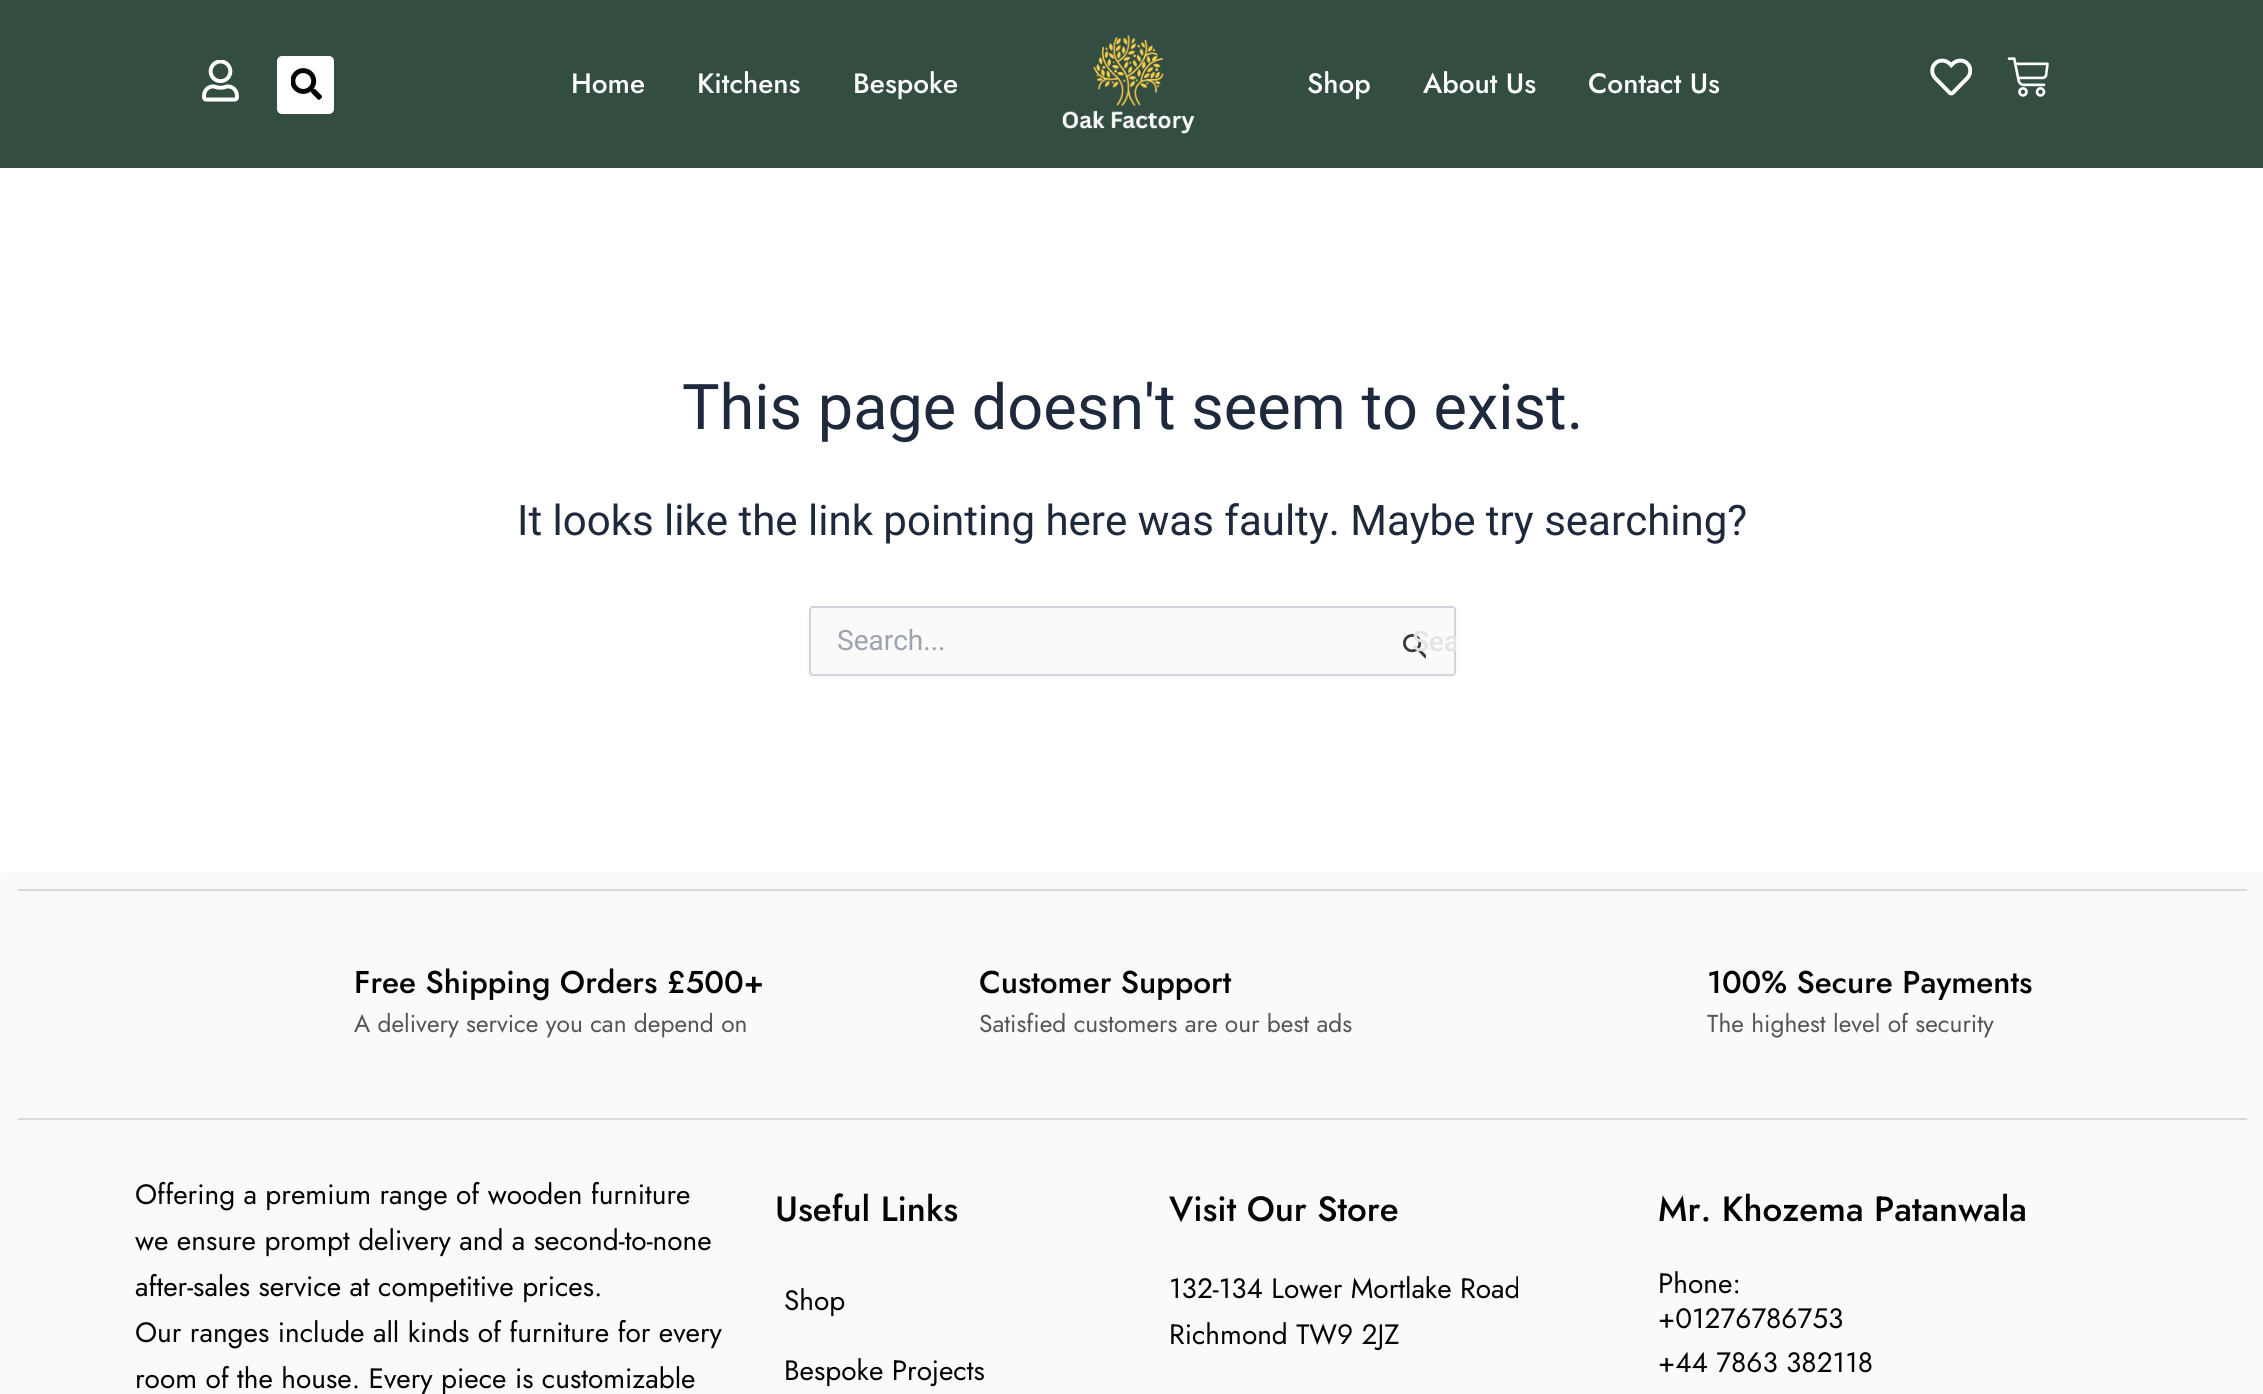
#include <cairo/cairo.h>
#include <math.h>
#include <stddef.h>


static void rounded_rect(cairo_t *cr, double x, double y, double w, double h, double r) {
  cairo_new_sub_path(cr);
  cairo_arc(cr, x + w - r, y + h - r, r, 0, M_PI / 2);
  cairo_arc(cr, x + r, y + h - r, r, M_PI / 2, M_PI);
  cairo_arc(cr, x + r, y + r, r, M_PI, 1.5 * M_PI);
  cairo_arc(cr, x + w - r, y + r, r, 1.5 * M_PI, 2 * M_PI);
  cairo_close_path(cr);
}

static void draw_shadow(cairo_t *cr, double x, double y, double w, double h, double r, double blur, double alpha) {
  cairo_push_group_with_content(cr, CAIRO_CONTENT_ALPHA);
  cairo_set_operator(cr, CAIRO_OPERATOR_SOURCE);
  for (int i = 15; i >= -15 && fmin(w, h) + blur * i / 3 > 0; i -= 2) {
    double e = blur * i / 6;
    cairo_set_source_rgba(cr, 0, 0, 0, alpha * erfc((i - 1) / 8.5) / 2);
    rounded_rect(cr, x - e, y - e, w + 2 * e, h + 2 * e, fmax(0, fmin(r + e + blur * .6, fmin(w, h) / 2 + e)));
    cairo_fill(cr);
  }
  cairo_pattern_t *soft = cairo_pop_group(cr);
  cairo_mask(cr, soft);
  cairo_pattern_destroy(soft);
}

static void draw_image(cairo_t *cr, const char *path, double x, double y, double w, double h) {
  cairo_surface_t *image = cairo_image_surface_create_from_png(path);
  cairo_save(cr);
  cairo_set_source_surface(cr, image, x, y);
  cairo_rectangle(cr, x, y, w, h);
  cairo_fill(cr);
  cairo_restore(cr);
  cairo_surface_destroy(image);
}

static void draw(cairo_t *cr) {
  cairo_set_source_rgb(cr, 1, 1, 1);
  cairo_paint(cr);
  cairo_set_source_rgb(cr, 51 / 255.0, 77 / 255.0, 65 / 255.0);
  cairo_rectangle(cr, 0, 0, 2263, 168);
  cairo_fill(cr);
  draw_image(cr, "images/1.png", 202, 60, 37, 42);
  cairo_set_source_rgb(cr, 1, 1, 1);
  rounded_rect(cr, 277, 56, 57, 58, 5);
  cairo_fill(cr);
  draw_image(cr, "images/2.png", 291, 68, 31, 32);
  draw_image(cr, "images/3.png", 1062, 34, 133, 100);
  draw_image(cr, "images/4.png", 1930, 58, 42, 38);
  draw_image(cr, "images/5.png", 2007, 57, 42, 40);
  cairo_set_source_rgb(cr, 0, 0, 0);
  draw_shadow(cr, 809, 607, 647, 70, 4, 2, 0.05);
  cairo_set_source_rgb(cr, 250 / 255.0, 250 / 255.0, 250 / 255.0);
  rounded_rect(cr, 810, 607, 645, 68, 3);
  cairo_fill_preserve(cr);
  cairo_set_source_rgb(cr, 209 / 255.0, 213 / 255.0, 219 / 255.0);
  cairo_stroke(cr);
  draw_image(cr, "images/6.png", 1403, 634, 23, 25);
  cairo_set_source_rgb(cr, 250 / 255.0, 250 / 255.0, 250 / 255.0);
  rounded_rect(cr, 0, 872, 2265, 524, 2);
  cairo_fill(cr);
  cairo_set_source_rgb(cr, 217 / 255.0, 217 / 255.0, 217 / 255.0);
  cairo_rectangle(cr, 18, 889, 2229, 2);
  cairo_fill(cr);
  cairo_rectangle(cr, 18, 1118, 2229, 2);
  cairo_fill(cr);
  cairo_select_font_face(cr, "Jost Medium", CAIRO_FONT_SLANT_NORMAL, CAIRO_FONT_WEIGHT_NORMAL);
  cairo_set_font_size(cr, 28);
  cairo_set_source_rgb(cr, 1, 1, 1);
  cairo_move_to(cr, 571, 93);
  cairo_show_text(cr, "Home");
  cairo_move_to(cr, 697, 93);
  cairo_show_text(cr, "Kitchens");
  cairo_move_to(cr, 853, 93);
  cairo_show_text(cr, "Bespoke");
  cairo_move_to(cr, 1307, 93);
  cairo_show_text(cr, "Shop");
  cairo_move_to(cr, 1423, 93);
  cairo_show_text(cr, "About Us");
  cairo_move_to(cr, 1588, 93);
  cairo_show_text(cr, "Contact Us");
  cairo_select_font_face(cr, "Roboto", CAIRO_FONT_SLANT_NORMAL, CAIRO_FONT_WEIGHT_NORMAL);
  cairo_set_font_size(cr, 63);
  cairo_set_source_rgb(cr, 30 / 255.0, 41 / 255.0, 59 / 255.0);
  cairo_move_to(cr, 682, 429);
  cairo_show_text(cr, "This page doesn't seem to exist.");
  cairo_set_font_size(cr, 42);
  cairo_move_to(cr, 517, 535);
  cairo_show_text(cr, "It looks like the link pointing here was faulty. Maybe try searching?");
  cairo_set_font_size(cr, 28);
  cairo_set_source_rgb(cr, 156 / 255.0, 163 / 255.0, 175 / 255.0);
  cairo_move_to(cr, 837, 650);
  cairo_show_text(cr, "Search...");
  cairo_save(cr);
  rounded_rect(cr, 1377, 606, 79, 73, 4);
  cairo_clip(cr);
  cairo_select_font_face(cr, "Roboto Medium", CAIRO_FONT_SLANT_NORMAL, CAIRO_FONT_WEIGHT_NORMAL);
  cairo_set_source_rgb(cr, 228 / 255.0, 228 / 255.0, 229 / 255.0);
  cairo_move_to(cr, 1412, 651);
  cairo_show_text(cr, "Sea");
  cairo_restore(cr);
  cairo_select_font_face(cr, "Jost Medium", CAIRO_FONT_SLANT_NORMAL, CAIRO_FONT_WEIGHT_NORMAL);
  cairo_set_font_size(cr, 31.5);
  cairo_set_source_rgb(cr, 4 / 255.0, 4 / 255.0, 4 / 255.0);
  cairo_move_to(cr, 354, 993);
  cairo_show_text(cr, "Free Shipping Orders £500+");
  cairo_select_font_face(cr, "Jost", CAIRO_FONT_SLANT_NORMAL, CAIRO_FONT_WEIGHT_NORMAL);
  cairo_set_font_size(cr, 24.5);
  cairo_set_source_rgb(cr, 85 / 255.0, 85 / 255.0, 85 / 255.0);
  cairo_move_to(cr, 354, 1032);
  cairo_show_text(cr, "A delivery service you can depend on");
  cairo_select_font_face(cr, "Jost Medium", CAIRO_FONT_SLANT_NORMAL, CAIRO_FONT_WEIGHT_NORMAL);
  cairo_set_font_size(cr, 31.5);
  cairo_set_source_rgb(cr, 4 / 255.0, 4 / 255.0, 4 / 255.0);
  cairo_move_to(cr, 979, 993);
  cairo_show_text(cr, "Customer Support");
  cairo_select_font_face(cr, "Jost", CAIRO_FONT_SLANT_NORMAL, CAIRO_FONT_WEIGHT_NORMAL);
  cairo_set_font_size(cr, 24.5);
  cairo_set_source_rgb(cr, 85 / 255.0, 85 / 255.0, 85 / 255.0);
  cairo_move_to(cr, 979, 1032);
  cairo_show_text(cr, "Satisfied customers are our best ads");
  cairo_select_font_face(cr, "Jost Medium", CAIRO_FONT_SLANT_NORMAL, CAIRO_FONT_WEIGHT_NORMAL);
  cairo_set_font_size(cr, 31.5);
  cairo_set_source_rgb(cr, 4 / 255.0, 4 / 255.0, 4 / 255.0);
  cairo_move_to(cr, 1707, 993);
  cairo_show_text(cr, "100% Secure Payments");
  cairo_select_font_face(cr, "Jost", CAIRO_FONT_SLANT_NORMAL, CAIRO_FONT_WEIGHT_NORMAL);
  cairo_set_font_size(cr, 24.5);
  cairo_set_source_rgb(cr, 85 / 255.0, 85 / 255.0, 85 / 255.0);
  cairo_move_to(cr, 1707, 1032);
  cairo_show_text(cr, "The highest level of security");
  cairo_set_font_size(cr, 28);
  cairo_set_source_rgb(cr, 4 / 255.0, 4 / 255.0, 4 / 255.0);
  cairo_move_to(cr, 135, 1204);
  cairo_show_text(cr, "Offering a premium range of wooden furniture");
  cairo_move_to(cr, 135, 1250);
  cairo_show_text(cr, "we ensure prompt delivery and a second-to-none");
  cairo_move_to(cr, 135, 1296);
  cairo_show_text(cr, "after-sales service at competitive prices.");
  cairo_move_to(cr, 135, 1342);
  cairo_show_text(cr, "Our ranges include all kinds of furniture for every");
  cairo_move_to(cr, 135, 1388);
  cairo_show_text(cr, "room of the house. Every piece is customizable");
  cairo_select_font_face(cr, "Jost Medium", CAIRO_FONT_SLANT_NORMAL, CAIRO_FONT_WEIGHT_NORMAL);
  cairo_set_font_size(cr, 35);
  cairo_move_to(cr, 775, 1221);
  cairo_show_text(cr, "Useful Links");
  cairo_select_font_face(cr, "Jost", CAIRO_FONT_SLANT_NORMAL, CAIRO_FONT_WEIGHT_NORMAL);
  cairo_set_font_size(cr, 28);
  cairo_move_to(cr, 784, 1310);
  cairo_show_text(cr, "Shop");
  cairo_move_to(cr, 784, 1380);
  cairo_show_text(cr, "Bespoke Projects");
  cairo_select_font_face(cr, "Jost Medium", CAIRO_FONT_SLANT_NORMAL, CAIRO_FONT_WEIGHT_NORMAL);
  cairo_set_font_size(cr, 35);
  cairo_move_to(cr, 1169, 1221);
  cairo_show_text(cr, "Visit Our Store");
  cairo_select_font_face(cr, "Jost", CAIRO_FONT_SLANT_NORMAL, CAIRO_FONT_WEIGHT_NORMAL);
  cairo_set_font_size(cr, 28);
  cairo_move_to(cr, 1169, 1298);
  cairo_show_text(cr, "132-134 Lower Mortlake Road");
  cairo_move_to(cr, 1169, 1344);
  cairo_show_text(cr, "Richmond TW9 2JZ");
  cairo_select_font_face(cr, "Jost Medium", CAIRO_FONT_SLANT_NORMAL, CAIRO_FONT_WEIGHT_NORMAL);
  cairo_set_font_size(cr, 35);
  cairo_move_to(cr, 1658, 1221);
  cairo_show_text(cr, "Mr. Khozema Patanwala");
  cairo_select_font_face(cr, "Jost", CAIRO_FONT_SLANT_NORMAL, CAIRO_FONT_WEIGHT_NORMAL);
  cairo_set_font_size(cr, 28);
  cairo_move_to(cr, 1658, 1293);
  cairo_show_text(cr, "Phone:");
  cairo_move_to(cr, 1658, 1328);
  cairo_show_text(cr, "+01276786753");
  cairo_move_to(cr, 1658, 1372);
  cairo_show_text(cr, "+44 7863 382118");
}

int main(void) {
  cairo_surface_t *surface = cairo_image_surface_create(CAIRO_FORMAT_RGB24, 2263, 1394);
  cairo_t *cr = cairo_create(surface);
  cairo_font_options_t *options = cairo_font_options_create();
  cairo_font_options_set_hint_metrics(options, CAIRO_HINT_METRICS_OFF);
  cairo_font_options_set_hint_style(options, CAIRO_HINT_STYLE_NONE);
  cairo_set_font_options(cr, options);
  cairo_set_miter_limit(cr, 4);
  draw(cr);
  cairo_surface_write_to_png(surface, "out.png");
  cairo_font_options_destroy(options);
  cairo_destroy(cr);
  cairo_surface_destroy(surface);
  return 0;
}
